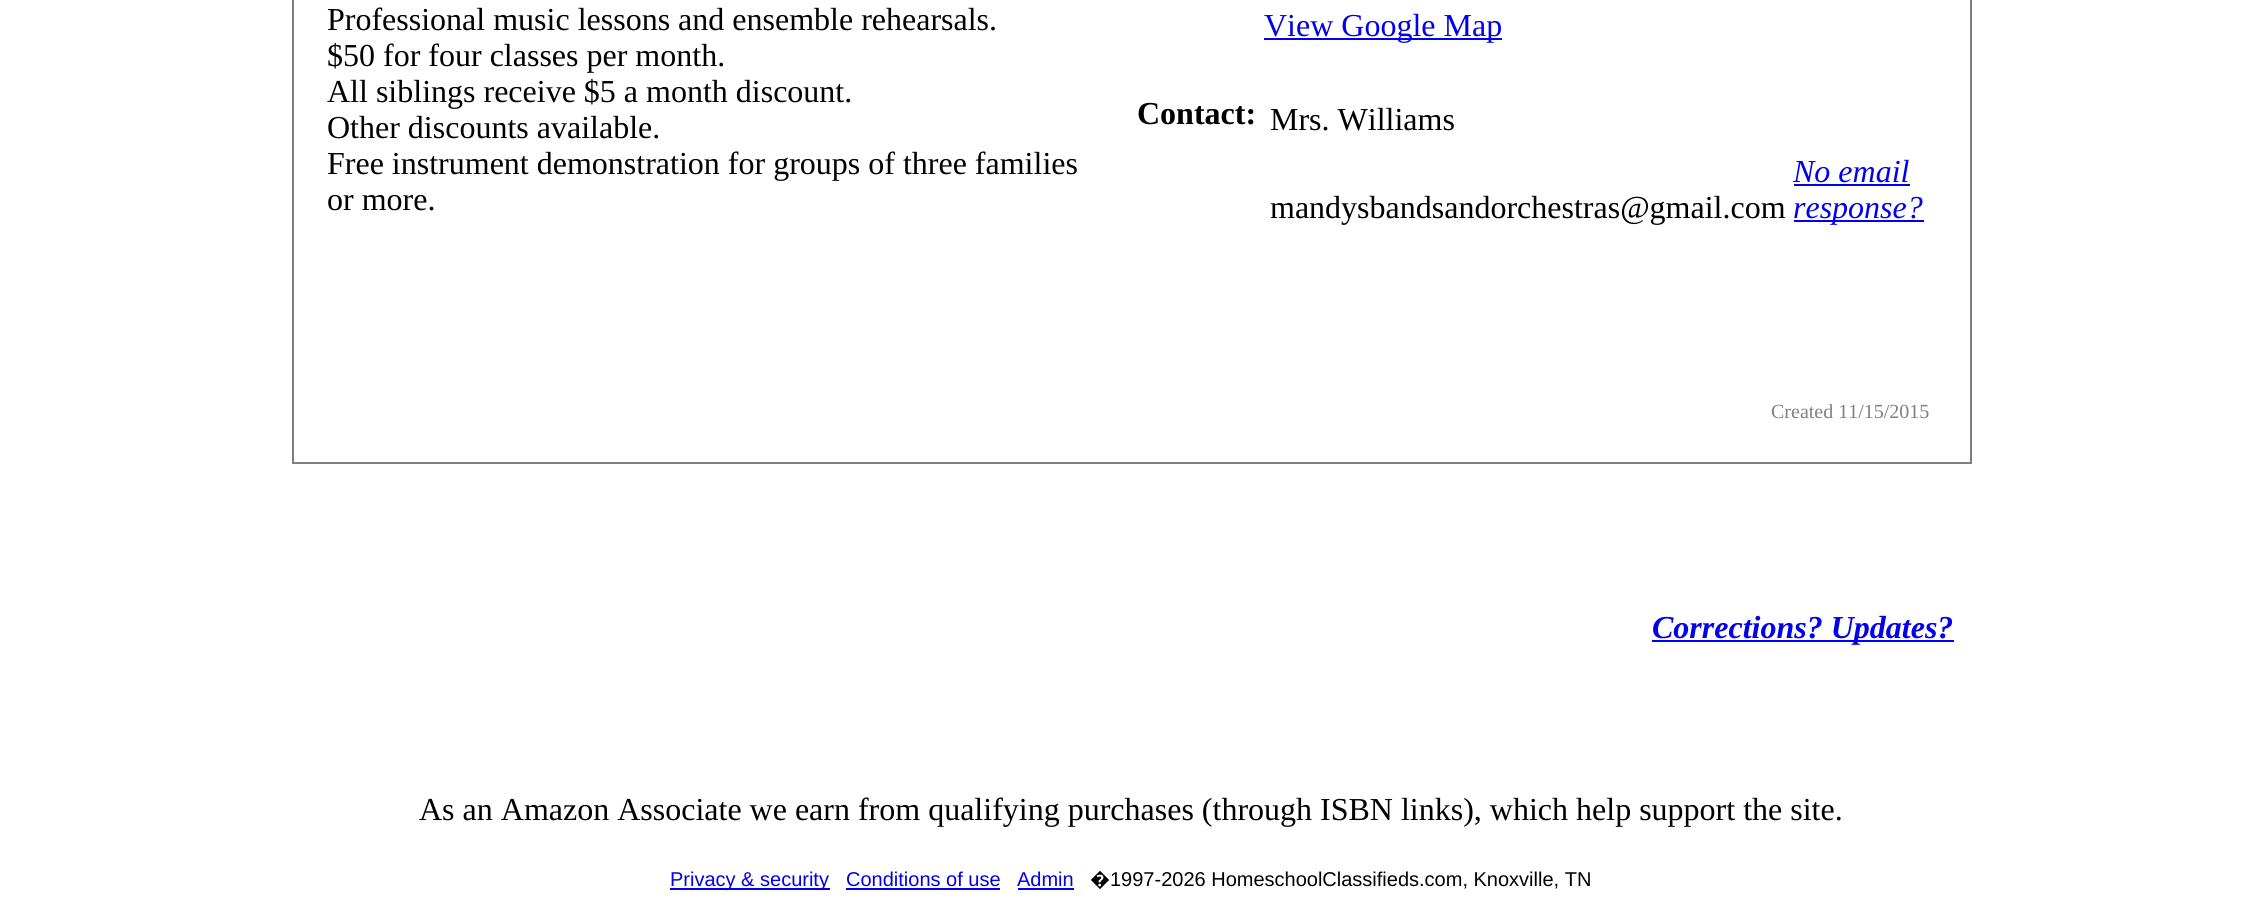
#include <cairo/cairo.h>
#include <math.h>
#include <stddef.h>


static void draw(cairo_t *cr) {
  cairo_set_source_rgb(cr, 1, 1, 1);
  cairo_paint(cr);
  cairo_set_source_rgb(cr, 128 / 255.0, 128 / 255.0, 128 / 255.0);
  cairo_rectangle(cr, 1970, 0, 2, 464);
  cairo_fill(cr);
  cairo_rectangle(cr, 292, 462, 1680, 2);
  cairo_fill(cr);
  cairo_rectangle(cr, 292, 0, 2, 464);
  cairo_fill(cr);
  cairo_set_source_rgb(cr, 0, 0, 238 / 255.0);
  cairo_rectangle(cr, 1264, 38, 238, 2);
  cairo_fill(cr);
  cairo_rectangle(cr, 1794, 184, 116, 2);
  cairo_fill(cr);
  cairo_rectangle(cr, 1794, 220, 130, 2);
  cairo_fill(cr);
  cairo_rectangle(cr, 1652, 640, 302, 2);
  cairo_fill(cr);
  cairo_rectangle(cr, 670, 888, 160, 2);
  cairo_fill(cr);
  cairo_rectangle(cr, 846, 888, 154, 2);
  cairo_fill(cr);
  cairo_rectangle(cr, 1018, 888, 56, 2);
  cairo_fill(cr);
  cairo_select_font_face(cr, "Liberation Serif", CAIRO_FONT_SLANT_NORMAL, CAIRO_FONT_WEIGHT_NORMAL);
  cairo_set_font_size(cr, 32);
  cairo_set_source_rgb(cr, 0, 0, 0);
  cairo_move_to(cr, 327, 30);
  cairo_show_text(cr, "Professional music lessons and ensemble rehearsals.");
  cairo_move_to(cr, 327, 66);
  cairo_show_text(cr, "$50 for four classes per month.");
  cairo_move_to(cr, 327, 102);
  cairo_show_text(cr, "All siblings receive $5 a month discount.");
  cairo_move_to(cr, 327, 138);
  cairo_show_text(cr, "Other discounts available.");
  cairo_move_to(cr, 327, 174);
  cairo_show_text(cr, "Free instrument demonstration for groups of three families");
  cairo_move_to(cr, 327, 210);
  cairo_show_text(cr, "or more.");
  cairo_set_source_rgb(cr, 0, 0, 238 / 255.0);
  cairo_move_to(cr, 1264, 36);
  cairo_show_text(cr, "View Google Map");
  cairo_select_font_face(cr, "Liberation Serif", CAIRO_FONT_SLANT_NORMAL, CAIRO_FONT_WEIGHT_BOLD);
  cairo_set_source_rgb(cr, 0, 0, 0);
  cairo_move_to(cr, 1137, 124);
  cairo_show_text(cr, "Contact:");
  cairo_select_font_face(cr, "Liberation Serif", CAIRO_FONT_SLANT_NORMAL, CAIRO_FONT_WEIGHT_NORMAL);
  cairo_move_to(cr, 1270, 130);
  cairo_show_text(cr, "Mrs. Williams");
  cairo_move_to(cr, 1270, 218);
  cairo_show_text(cr, "mandysbandsandorchestras@gmail.com");
  cairo_select_font_face(cr, "Liberation Serif", CAIRO_FONT_SLANT_ITALIC, CAIRO_FONT_WEIGHT_NORMAL);
  cairo_set_source_rgb(cr, 0, 0, 238 / 255.0);
  cairo_move_to(cr, 1793, 182);
  cairo_show_text(cr, "No email");
  cairo_move_to(cr, 1793, 218);
  cairo_show_text(cr, "response?");
  cairo_select_font_face(cr, "Liberation Serif", CAIRO_FONT_SLANT_NORMAL, CAIRO_FONT_WEIGHT_NORMAL);
  cairo_set_font_size(cr, 20);
  cairo_set_source_rgb(cr, 128 / 255.0, 128 / 255.0, 128 / 255.0);
  cairo_move_to(cr, 1771, 418);
  cairo_show_text(cr, "Created 11/15/2015");
  cairo_select_font_face(cr, "Liberation Serif", CAIRO_FONT_SLANT_ITALIC, CAIRO_FONT_WEIGHT_BOLD);
  cairo_set_font_size(cr, 32);
  cairo_set_source_rgb(cr, 0, 0, 238 / 255.0);
  cairo_move_to(cr, 1652, 638);
  cairo_show_text(cr, "Corrections? Updates?");
  cairo_select_font_face(cr, "Liberation Serif", CAIRO_FONT_SLANT_NORMAL, CAIRO_FONT_WEIGHT_NORMAL);
  cairo_set_source_rgb(cr, 0, 0, 0);
  cairo_move_to(cr, 419, 820);
  cairo_show_text(cr, "As an Amazon Associate we earn from qualifying purchases (through ISBN links), which help support the site.");
  cairo_select_font_face(cr, "Liberation Sans", CAIRO_FONT_SLANT_NORMAL, CAIRO_FONT_WEIGHT_NORMAL);
  cairo_set_font_size(cr, 20);
  cairo_set_source_rgb(cr, 0, 0, 238 / 255.0);
  cairo_move_to(cr, 670, 886);
  cairo_show_text(cr, "Privacy & security");
  cairo_move_to(cr, 846, 886);
  cairo_show_text(cr, "Conditions of use");
  cairo_move_to(cr, 1017, 886);
  cairo_show_text(cr, "Admin");
  cairo_select_font_face(cr, "Noto Sans", CAIRO_FONT_SLANT_NORMAL, CAIRO_FONT_WEIGHT_NORMAL);
  cairo_set_source_rgb(cr, 0, 0, 0);
  cairo_move_to(cr, 1090, 886);
  cairo_show_text(cr, "�");
  cairo_select_font_face(cr, "Liberation Sans", CAIRO_FONT_SLANT_NORMAL, CAIRO_FONT_WEIGHT_NORMAL);
  cairo_move_to(cr, 1110, 886);
  cairo_show_text(cr, "1997-2026 HomeschoolClassifieds.com, Knoxville, TN");
}

int main(void) {
  cairo_surface_t *surface = cairo_image_surface_create(CAIRO_FORMAT_RGB24, 2262, 907);
  cairo_t *cr = cairo_create(surface);
  cairo_font_options_t *options = cairo_font_options_create();
  cairo_font_options_set_hint_metrics(options, CAIRO_HINT_METRICS_OFF);
  cairo_font_options_set_hint_style(options, CAIRO_HINT_STYLE_NONE);
  cairo_set_font_options(cr, options);
  cairo_set_miter_limit(cr, 4);
  draw(cr);
  cairo_surface_write_to_png(surface, "out.png");
  cairo_font_options_destroy(options);
  cairo_destroy(cr);
  cairo_surface_destroy(surface);
  return 0;
}
